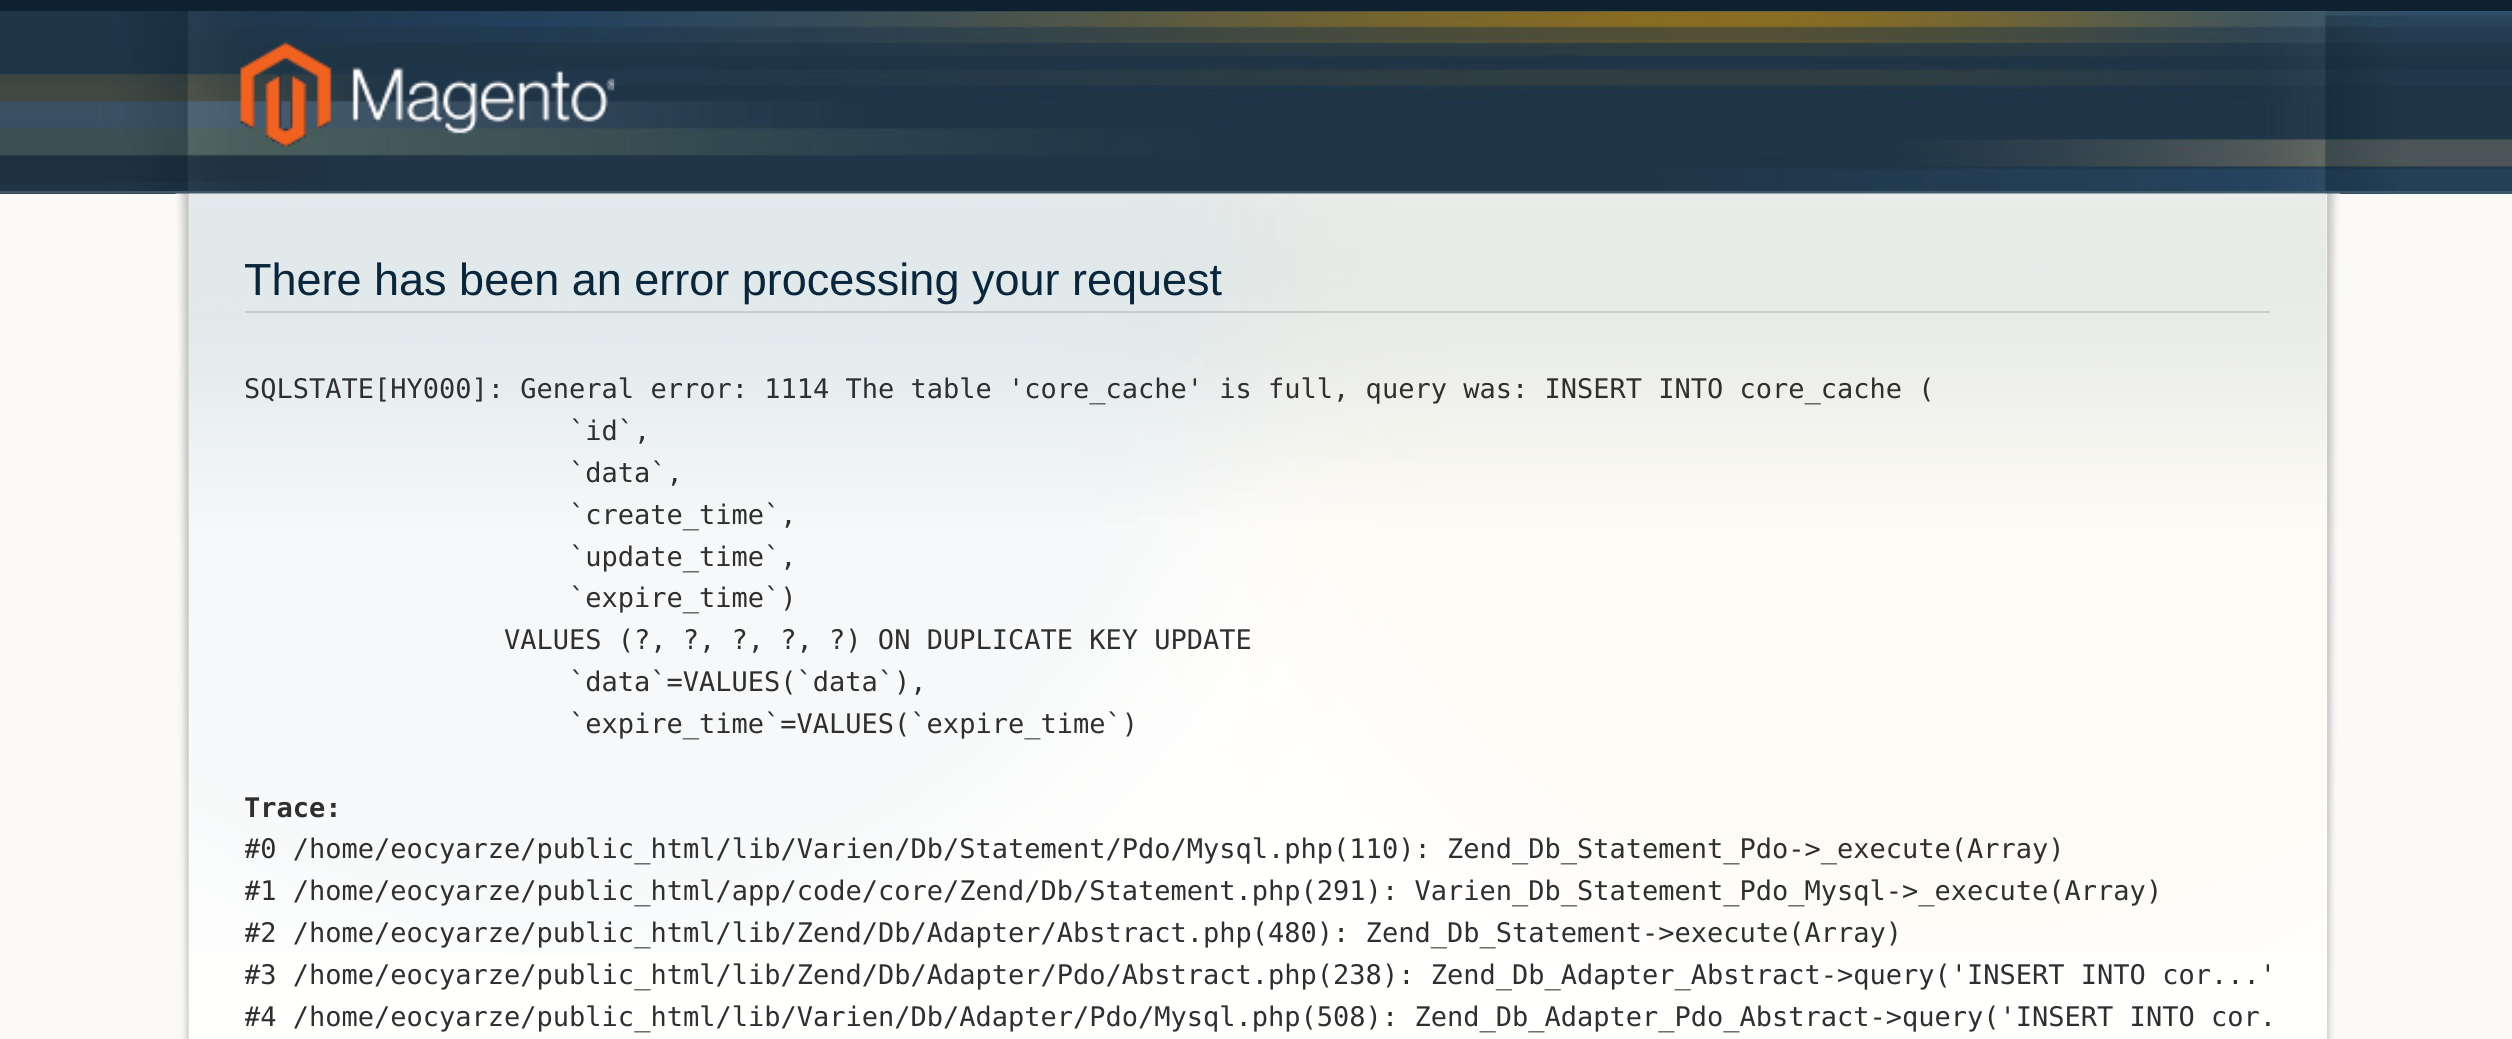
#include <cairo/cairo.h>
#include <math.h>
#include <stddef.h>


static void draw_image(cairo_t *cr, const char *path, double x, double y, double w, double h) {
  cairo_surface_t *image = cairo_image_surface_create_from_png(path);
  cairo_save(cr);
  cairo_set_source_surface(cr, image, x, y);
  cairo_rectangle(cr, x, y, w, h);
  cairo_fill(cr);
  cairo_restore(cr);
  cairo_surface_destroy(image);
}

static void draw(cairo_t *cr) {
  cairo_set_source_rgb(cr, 73 / 255.0, 103 / 255.0, 120 / 255.0);
  cairo_paint(cr);
  draw_image(cr, "images/1.png", 187, 193, 2142, 1);
  draw_image(cr, "images/2.png", 0, 11, 2512, 183);
  cairo_set_source_rgb(cr, 13 / 255.0, 33 / 255.0, 49 / 255.0);
  cairo_rectangle(cr, 0, 0, 2512, 11);
  cairo_fill(cr);
  cairo_set_source_rgb(cr, 65 / 255.0, 89 / 255.0, 102 / 255.0);
  cairo_rectangle(cr, 0, 191, 2512, 2);
  cairo_fill(cr);
  draw_image(cr, "images/3.png", 240, 42, 375, 105);
  cairo_set_source_rgb(cr, 251 / 255.0, 250 / 255.0, 246 / 255.0);
  cairo_rectangle(cr, 0, 194, 2512, 845);
  cairo_fill(cr);
  draw_image(cr, "images/4.png", 175, 193, 2165, 846);
  cairo_set_source_rgb(cr, 1, 1, 254 / 255.0);
  cairo_rectangle(cr, 189, 194, 2138, 845);
  cairo_fill(cr);
  draw_image(cr, "images/5.png", 189, 193, 2138, 760);
  cairo_set_source_rgb(cr, 204 / 255.0, 204 / 255.0, 204 / 255.0);
  cairo_rectangle(cr, 245, 311, 2025, 2);
  cairo_fill(cr);
  cairo_select_font_face(cr, "Liberation Sans", CAIRO_FONT_SLANT_NORMAL, CAIRO_FONT_WEIGHT_NORMAL);
  cairo_set_font_size(cr, 45);
  cairo_set_source_rgb(cr, 10 / 255.0, 38 / 255.0, 60 / 255.0);
  cairo_move_to(cr, 244, 295);
  cairo_show_text(cr, "There has been an error processing your request");
  cairo_select_font_face(cr, "DejaVu Sans Mono", CAIRO_FONT_SLANT_NORMAL, CAIRO_FONT_WEIGHT_NORMAL);
  cairo_set_font_size(cr, 27);
  cairo_set_source_rgb(cr, 47 / 255.0, 47 / 255.0, 47 / 255.0);
  cairo_move_to(cr, 244, 398);
  cairo_show_text(cr, "SQLSTATE[HY000]: General error: 1114 The table 'core_cache' is full, query was: INSERT INTO core_cache (");
  cairo_move_to(cr, 569, 440);
  cairo_show_text(cr, "`id`,");
  cairo_move_to(cr, 569, 482);
  cairo_show_text(cr, "`data`,");
  cairo_move_to(cr, 569, 524);
  cairo_show_text(cr, "`create_time`,");
  cairo_move_to(cr, 569, 566);
  cairo_show_text(cr, "`update_time`,");
  cairo_move_to(cr, 569, 607);
  cairo_show_text(cr, "`expire_time`)");
  cairo_move_to(cr, 504, 649);
  cairo_show_text(cr, "VALUES (?, ?, ?, ?, ?) ON DUPLICATE KEY UPDATE");
  cairo_move_to(cr, 569, 691);
  cairo_show_text(cr, "`data`=VALUES(`data`),");
  cairo_move_to(cr, 569, 733);
  cairo_show_text(cr, "`expire_time`=VALUES(`expire_time`)");
  cairo_select_font_face(cr, "DejaVu Sans Mono", CAIRO_FONT_SLANT_NORMAL, CAIRO_FONT_WEIGHT_BOLD);
  cairo_move_to(cr, 244, 817);
  cairo_show_text(cr, "Trace:");
  cairo_save(cr);
  cairo_rectangle(cr, 245, 369, 2025, 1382);
  cairo_clip(cr);
  cairo_select_font_face(cr, "DejaVu Sans Mono", CAIRO_FONT_SLANT_NORMAL, CAIRO_FONT_WEIGHT_NORMAL);
  cairo_move_to(cr, 244, 858);
  cairo_show_text(cr, "#0 /home/eocyarze/public_html/lib/Varien/Db/Statement/Pdo/Mysql.php(110): Zend_Db_Statement_Pdo->_execute(Array)");
  cairo_move_to(cr, 244, 900);
  cairo_show_text(cr, "#1 /home/eocyarze/public_html/app/code/core/Zend/Db/Statement.php(291): Varien_Db_Statement_Pdo_Mysql->_execute(Array)");
  cairo_move_to(cr, 244, 942);
  cairo_show_text(cr, "#2 /home/eocyarze/public_html/lib/Zend/Db/Adapter/Abstract.php(480): Zend_Db_Statement->execute(Array)");
  cairo_move_to(cr, 244, 984);
  cairo_show_text(cr, "#3 /home/eocyarze/public_html/lib/Zend/Db/Adapter/Pdo/Abstract.php(238): Zend_Db_Adapter_Abstract->query('INSERT INTO cor...'");
  cairo_move_to(cr, 244, 1026);
  cairo_show_text(cr, "#4 /home/eocyarze/public_html/lib/Varien/Db/Adapter/Pdo/Mysql.php(508): Zend_Db_Adapter_Pdo_Abstract->query('INSERT INTO cor.");
  cairo_restore(cr);
}

int main(void) {
  cairo_surface_t *surface = cairo_image_surface_create(CAIRO_FORMAT_RGB24, 2512, 1039);
  cairo_t *cr = cairo_create(surface);
  cairo_font_options_t *options = cairo_font_options_create();
  cairo_font_options_set_hint_metrics(options, CAIRO_HINT_METRICS_OFF);
  cairo_font_options_set_hint_style(options, CAIRO_HINT_STYLE_NONE);
  cairo_set_font_options(cr, options);
  cairo_set_miter_limit(cr, 4);
  draw(cr);
  cairo_surface_write_to_png(surface, "out.png");
  cairo_font_options_destroy(options);
  cairo_destroy(cr);
  cairo_surface_destroy(surface);
  return 0;
}
